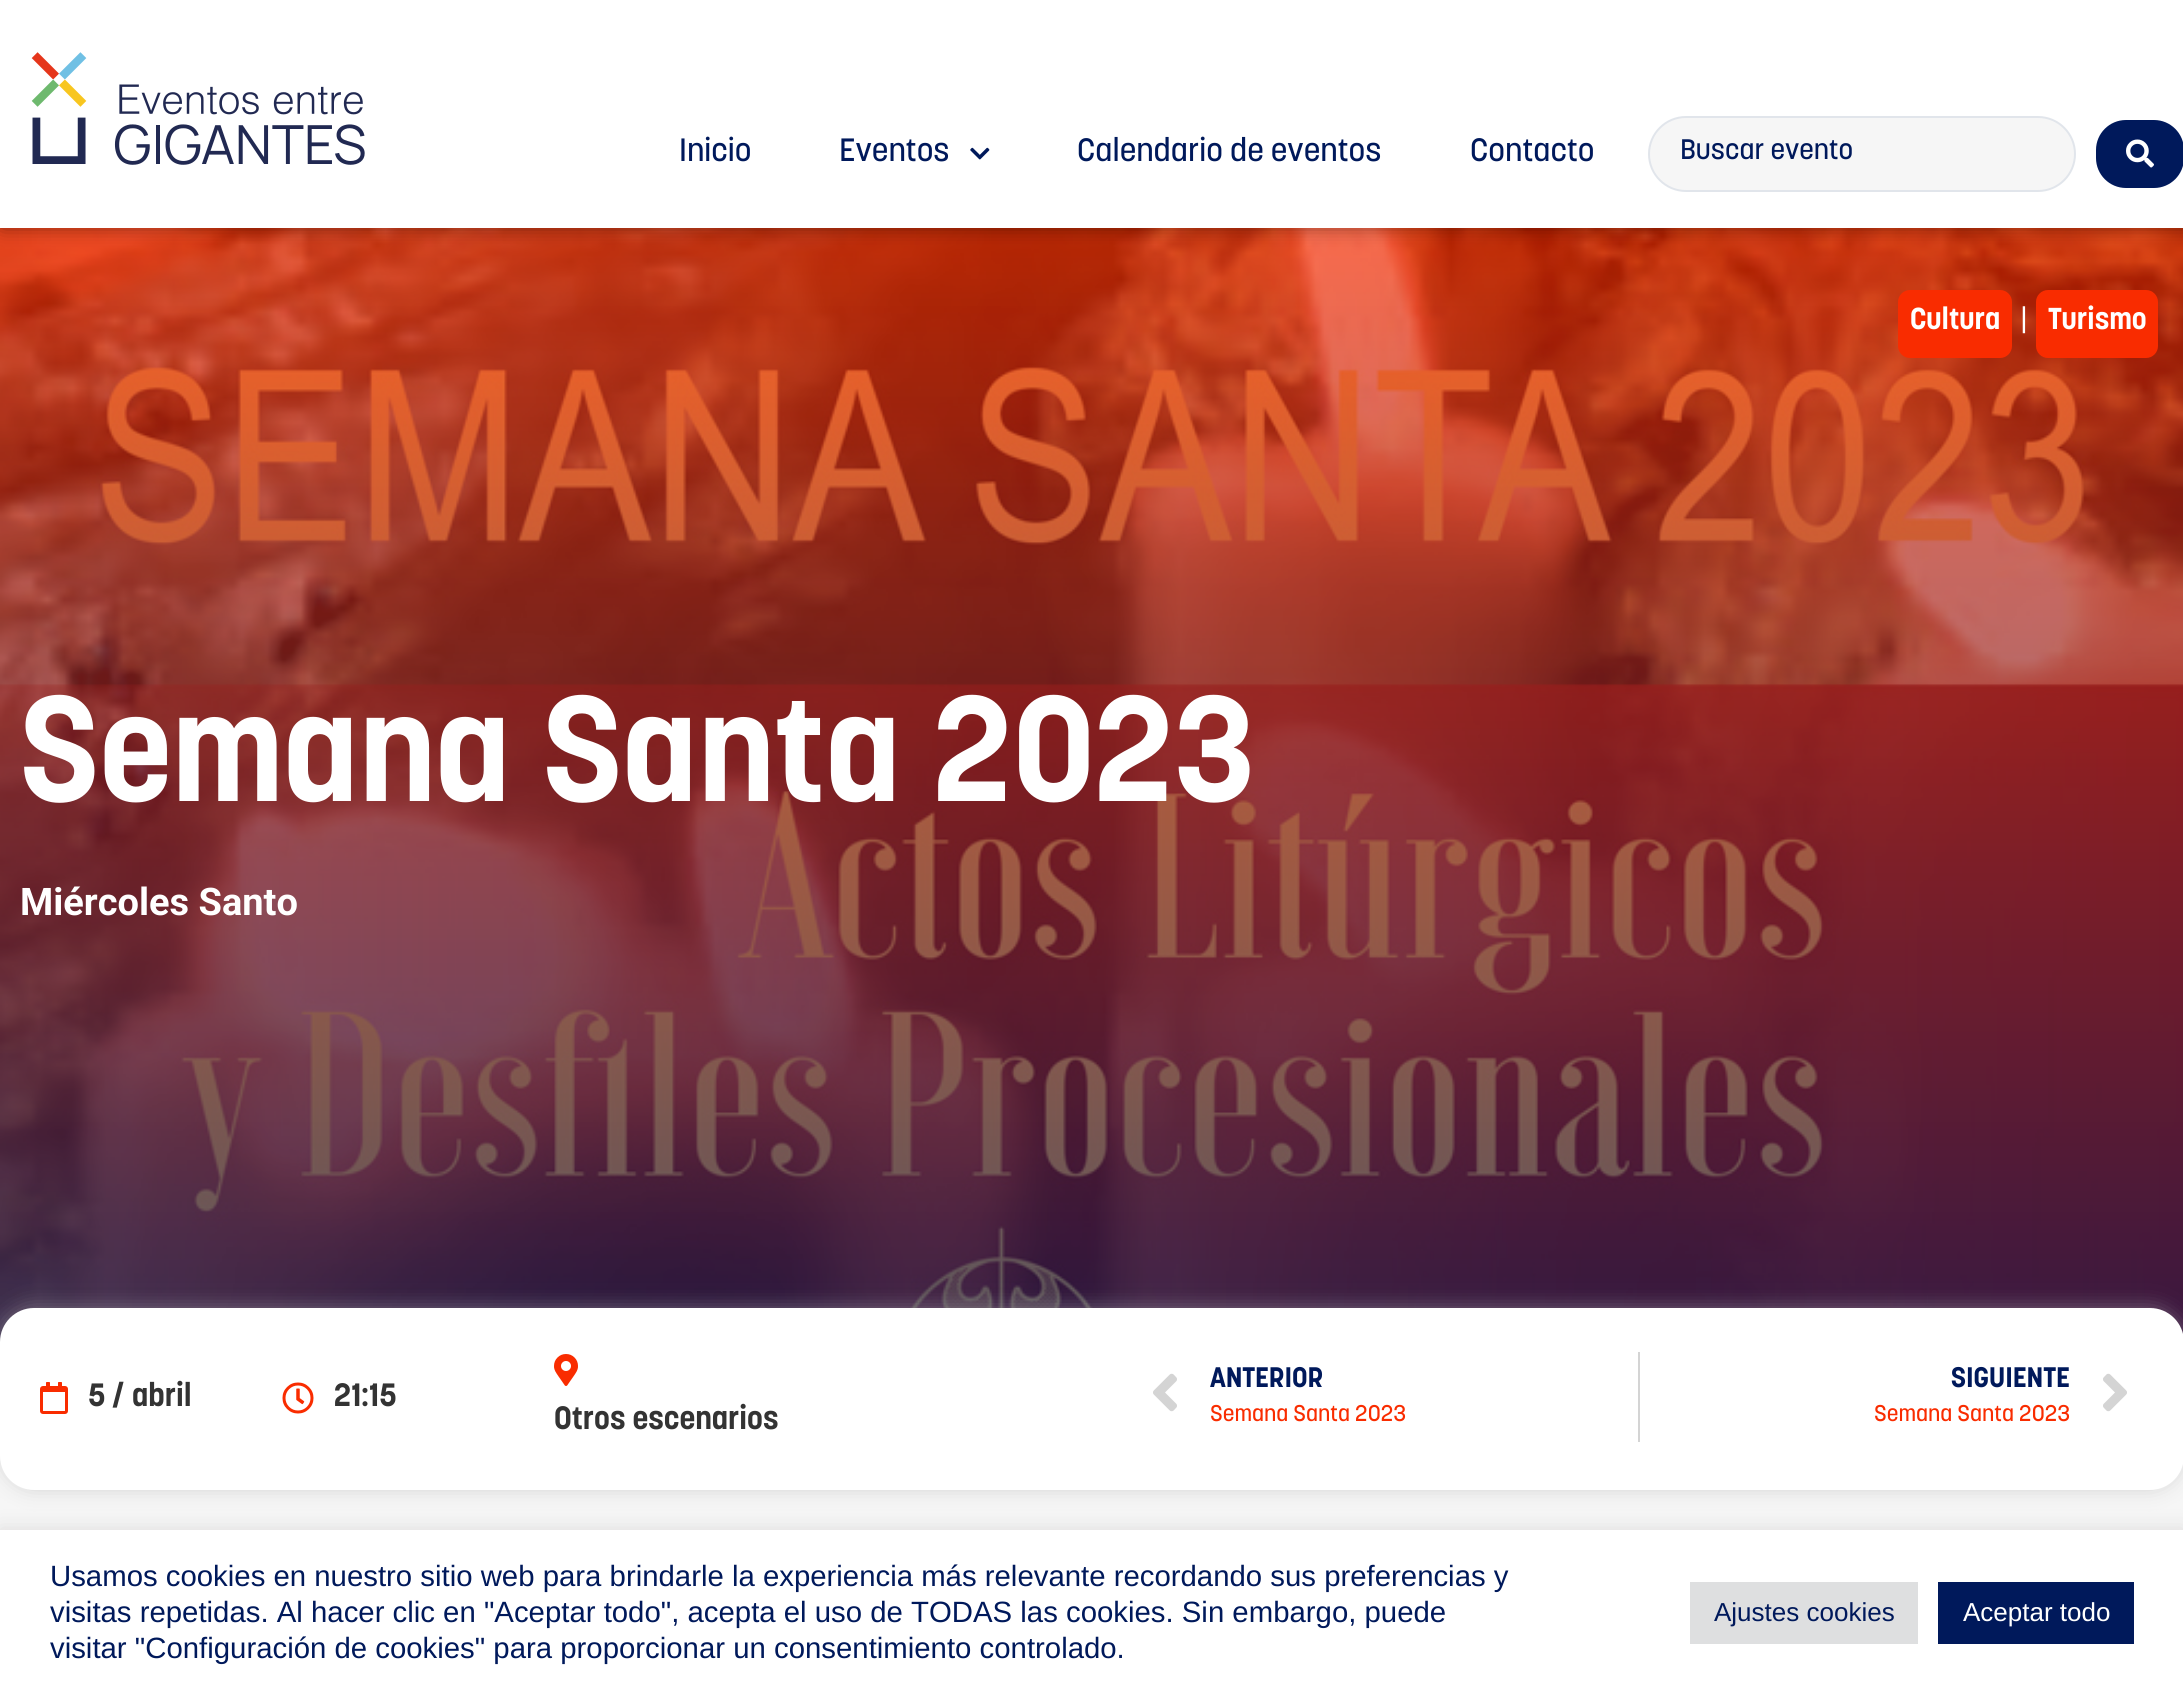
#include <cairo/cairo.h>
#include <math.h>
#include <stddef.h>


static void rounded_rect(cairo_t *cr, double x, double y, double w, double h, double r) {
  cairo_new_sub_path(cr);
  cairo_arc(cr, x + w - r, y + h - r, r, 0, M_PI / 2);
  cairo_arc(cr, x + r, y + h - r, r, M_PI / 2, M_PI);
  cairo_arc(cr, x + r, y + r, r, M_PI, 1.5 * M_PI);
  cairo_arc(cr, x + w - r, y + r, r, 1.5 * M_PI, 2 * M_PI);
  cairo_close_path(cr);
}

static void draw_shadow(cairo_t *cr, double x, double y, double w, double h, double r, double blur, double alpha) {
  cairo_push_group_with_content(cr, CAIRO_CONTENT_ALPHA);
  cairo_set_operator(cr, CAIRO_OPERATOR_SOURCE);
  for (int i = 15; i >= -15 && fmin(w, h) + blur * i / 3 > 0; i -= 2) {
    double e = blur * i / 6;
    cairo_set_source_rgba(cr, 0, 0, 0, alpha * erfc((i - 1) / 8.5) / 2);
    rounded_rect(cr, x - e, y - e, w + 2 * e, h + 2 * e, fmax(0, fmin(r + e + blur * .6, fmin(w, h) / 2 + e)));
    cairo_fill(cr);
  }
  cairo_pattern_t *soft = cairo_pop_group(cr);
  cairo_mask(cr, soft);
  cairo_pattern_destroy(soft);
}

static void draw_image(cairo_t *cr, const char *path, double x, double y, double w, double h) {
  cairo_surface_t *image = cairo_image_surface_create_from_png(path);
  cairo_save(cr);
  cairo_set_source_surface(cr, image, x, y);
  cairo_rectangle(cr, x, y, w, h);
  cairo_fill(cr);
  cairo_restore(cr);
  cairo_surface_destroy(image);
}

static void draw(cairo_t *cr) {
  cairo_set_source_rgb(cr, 246 / 255.0, 246 / 255.0, 246 / 255.0);
  cairo_paint(cr);
  draw_image(cr, "images/4.png", 0, 228, 2183, 1114);
  cairo_set_source_rgb(cr, 0, 0, 0);
  draw_shadow(cr, 2, -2, 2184, 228, 0, 10, 0.5);
  cairo_set_source_rgb(cr, 1, 1, 1);
  cairo_rectangle(cr, 0, 0, 2183, 228);
  cairo_fill(cr);
  draw_image(cr, "images/1.png", 31, 52, 334, 113);
  draw_image(cr, "images/2.png", 970, 147, 20, 13);
  cairo_set_source_rgb(cr, 246 / 255.0, 246 / 255.0, 246 / 255.0);
  rounded_rect(cr, 1649, 117, 426, 74, 37);
  cairo_fill_preserve(cr);
  cairo_set_source_rgb(cr, 225 / 255.0, 229 / 255.0, 235 / 255.0);
  cairo_stroke(cr);
  cairo_set_source_rgb(cr, 0, 25 / 255.0, 91 / 255.0);
  rounded_rect(cr, 2096, 120, 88, 68, 30);
  cairo_fill(cr);
  draw_image(cr, "images/3.png", 2126, 139, 28, 29);
  cairo_set_source_rgb(cr, 249 / 255.0, 44 / 255.0, 0);
  rounded_rect(cr, 1898, 290, 114, 68, 12);
  cairo_fill(cr);
  rounded_rect(cr, 2036, 290, 122, 68, 12);
  cairo_fill(cr);
  cairo_set_source_rgb(cr, 180 / 255.0, 180 / 255.0, 180 / 255.0);
  draw_shadow(cr, 0, 1308, 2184, 182, 34, 10, 0.5);
  cairo_set_source_rgb(cr, 1, 1, 1);
  rounded_rect(cr, 0, 1308, 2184, 182, 34);
  cairo_fill(cr);
  draw_image(cr, "images/5.png", 40, 1382, 28, 32);
  draw_image(cr, "images/6.png", 282, 1382, 32, 32);
  draw_image(cr, "images/7.png", 1153, 1373, 24, 39);
  cairo_set_source_rgb(cr, 212 / 255.0, 212 / 255.0, 212 / 255.0);
  cairo_rectangle(cr, 1638, 1352, 2, 90);
  cairo_fill(cr);
  draw_image(cr, "images/8.png", 2103, 1373, 24, 39);
  draw_image(cr, "images/9.png", 554, 1354, 24, 32);
  cairo_set_source_rgb(cr, 172 / 255.0, 171 / 255.0, 171 / 255.0);
  draw_shadow(cr, 0, 1528, 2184, 164, 0, 10, 0.3);
  cairo_set_source_rgb(cr, 1, 1, 1);
  cairo_rectangle(cr, 0, 1530, 2183, 164);
  cairo_fill(cr);
  cairo_set_source_rgb(cr, 222 / 255.0, 223 / 255.0, 224 / 255.0);
  cairo_rectangle(cr, 1690, 1582, 228, 62);
  cairo_fill(cr);
  cairo_set_source_rgb(cr, 0, 25 / 255.0, 91 / 255.0);
  cairo_rectangle(cr, 1938, 1582, 196, 62);
  cairo_fill(cr);
  cairo_select_font_face(cr, "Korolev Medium", CAIRO_FONT_SLANT_NORMAL, CAIRO_FONT_WEIGHT_NORMAL);
  cairo_set_font_size(cr, 32);
  cairo_move_to(cr, 679, 161);
  cairo_show_text(cr, "Inicio");
  cairo_move_to(cr, 839, 161);
  cairo_show_text(cr, "Eventos");
  cairo_move_to(cr, 1077, 161);
  cairo_show_text(cr, "Calendario de eventos");
  cairo_move_to(cr, 1470, 161);
  cairo_show_text(cr, "Contacto");
  cairo_set_font_size(cr, 28);
  cairo_move_to(cr, 1680, 159);
  cairo_show_text(cr, "Buscar evento");
  cairo_select_font_face(cr, "Korolev", CAIRO_FONT_SLANT_NORMAL, CAIRO_FONT_WEIGHT_BOLD);
  cairo_set_font_size(cr, 30);
  cairo_set_source_rgb(cr, 1, 1, 1);
  cairo_move_to(cr, 1910, 329);
  cairo_show_text(cr, "Cultura");
  cairo_select_font_face(cr, "Roboto", CAIRO_FONT_SLANT_NORMAL, CAIRO_FONT_WEIGHT_NORMAL);
  cairo_set_font_size(cr, 32);
  cairo_move_to(cr, 2020, 329);
  cairo_show_text(cr, "|");
  cairo_select_font_face(cr, "Korolev", CAIRO_FONT_SLANT_NORMAL, CAIRO_FONT_WEIGHT_BOLD);
  cairo_set_font_size(cr, 30);
  cairo_move_to(cr, 2048, 329);
  cairo_show_text(cr, "Turismo");
  cairo_set_font_size(cr, 148);
  cairo_move_to(cr, 20, 801);
  cairo_show_text(cr, "Semana Santa 2023");
  cairo_select_font_face(cr, "Roboto", CAIRO_FONT_SLANT_NORMAL, CAIRO_FONT_WEIGHT_BOLD);
  cairo_set_font_size(cr, 38);
  cairo_move_to(cr, 20, 915);
  cairo_show_text(cr, "Miércoles Santo");
  cairo_select_font_face(cr, "Korolev", CAIRO_FONT_SLANT_NORMAL, CAIRO_FONT_WEIGHT_BOLD);
  cairo_set_font_size(cr, 32);
  cairo_set_source_rgb(cr, 51 / 255.0, 51 / 255.0, 51 / 255.0);
  cairo_move_to(cr, 88, 1406);
  cairo_show_text(cr, "5 / abril");
  cairo_move_to(cr, 334, 1406);
  cairo_show_text(cr, "21:15");
  cairo_set_font_size(cr, 28);
  cairo_set_source_rgb(cr, 0, 25 / 255.0, 91 / 255.0);
  cairo_move_to(cr, 1210, 1387);
  cairo_show_text(cr, "ANTERIOR");
  cairo_select_font_face(cr, "Korolev Medium", CAIRO_FONT_SLANT_NORMAL, CAIRO_FONT_WEIGHT_NORMAL);
  cairo_set_font_size(cr, 22.5);
  cairo_set_source_rgb(cr, 249 / 255.0, 44 / 255.0, 0);
  cairo_move_to(cr, 1210, 1421);
  cairo_show_text(cr, "Semana Santa 2023");
  cairo_select_font_face(cr, "Korolev", CAIRO_FONT_SLANT_NORMAL, CAIRO_FONT_WEIGHT_BOLD);
  cairo_set_font_size(cr, 28);
  cairo_set_source_rgb(cr, 0, 25 / 255.0, 91 / 255.0);
  cairo_move_to(cr, 1951, 1387);
  cairo_show_text(cr, "SIGUIENTE");
  cairo_select_font_face(cr, "Korolev Medium", CAIRO_FONT_SLANT_NORMAL, CAIRO_FONT_WEIGHT_NORMAL);
  cairo_set_font_size(cr, 22.5);
  cairo_set_source_rgb(cr, 249 / 255.0, 44 / 255.0, 0);
  cairo_move_to(cr, 1874, 1421);
  cairo_show_text(cr, "Semana Santa 2023");
  cairo_select_font_face(cr, "Korolev", CAIRO_FONT_SLANT_NORMAL, CAIRO_FONT_WEIGHT_BOLD);
  cairo_set_font_size(cr, 32);
  cairo_set_source_rgb(cr, 51 / 255.0, 51 / 255.0, 51 / 255.0);
  cairo_move_to(cr, 554, 1429);
  cairo_show_text(cr, "Otros escenarios");
  cairo_select_font_face(cr, "Liberation Sans", CAIRO_FONT_SLANT_NORMAL, CAIRO_FONT_WEIGHT_NORMAL);
  cairo_set_font_size(cr, 29.35);
  cairo_set_source_rgb(cr, 0, 25 / 255.0, 91 / 255.0);
  cairo_move_to(cr, 50, 1586);
  cairo_show_text(cr, "Usamos cookies en nuestro sitio web para brindarle la experiencia más relevante recordando sus preferencias y");
  cairo_move_to(cr, 50, 1622);
  cairo_show_text(cr, "visitas repetidas. Al hacer clic en \"Aceptar todo\", acepta el uso de TODAS las cookies. Sin embargo, puede");
  cairo_move_to(cr, 50, 1658);
  cairo_show_text(cr, "visitar \"Configuración de cookies\" para proporcionar un consentimiento controlado.");
  cairo_set_font_size(cr, 26);
  cairo_move_to(cr, 1714, 1621);
  cairo_show_text(cr, "Ajustes cookies");
  cairo_set_source_rgb(cr, 1, 1, 1);
  cairo_move_to(cr, 1963, 1621);
  cairo_show_text(cr, "Aceptar todo");
}

int main(void) {
  cairo_surface_t *surface = cairo_image_surface_create(CAIRO_FORMAT_RGB24, 2183, 1694);
  cairo_t *cr = cairo_create(surface);
  cairo_font_options_t *options = cairo_font_options_create();
  cairo_font_options_set_hint_metrics(options, CAIRO_HINT_METRICS_OFF);
  cairo_font_options_set_hint_style(options, CAIRO_HINT_STYLE_NONE);
  cairo_set_font_options(cr, options);
  cairo_set_miter_limit(cr, 4);
  draw(cr);
  cairo_surface_write_to_png(surface, "out.png");
  cairo_font_options_destroy(options);
  cairo_destroy(cr);
  cairo_surface_destroy(surface);
  return 0;
}
